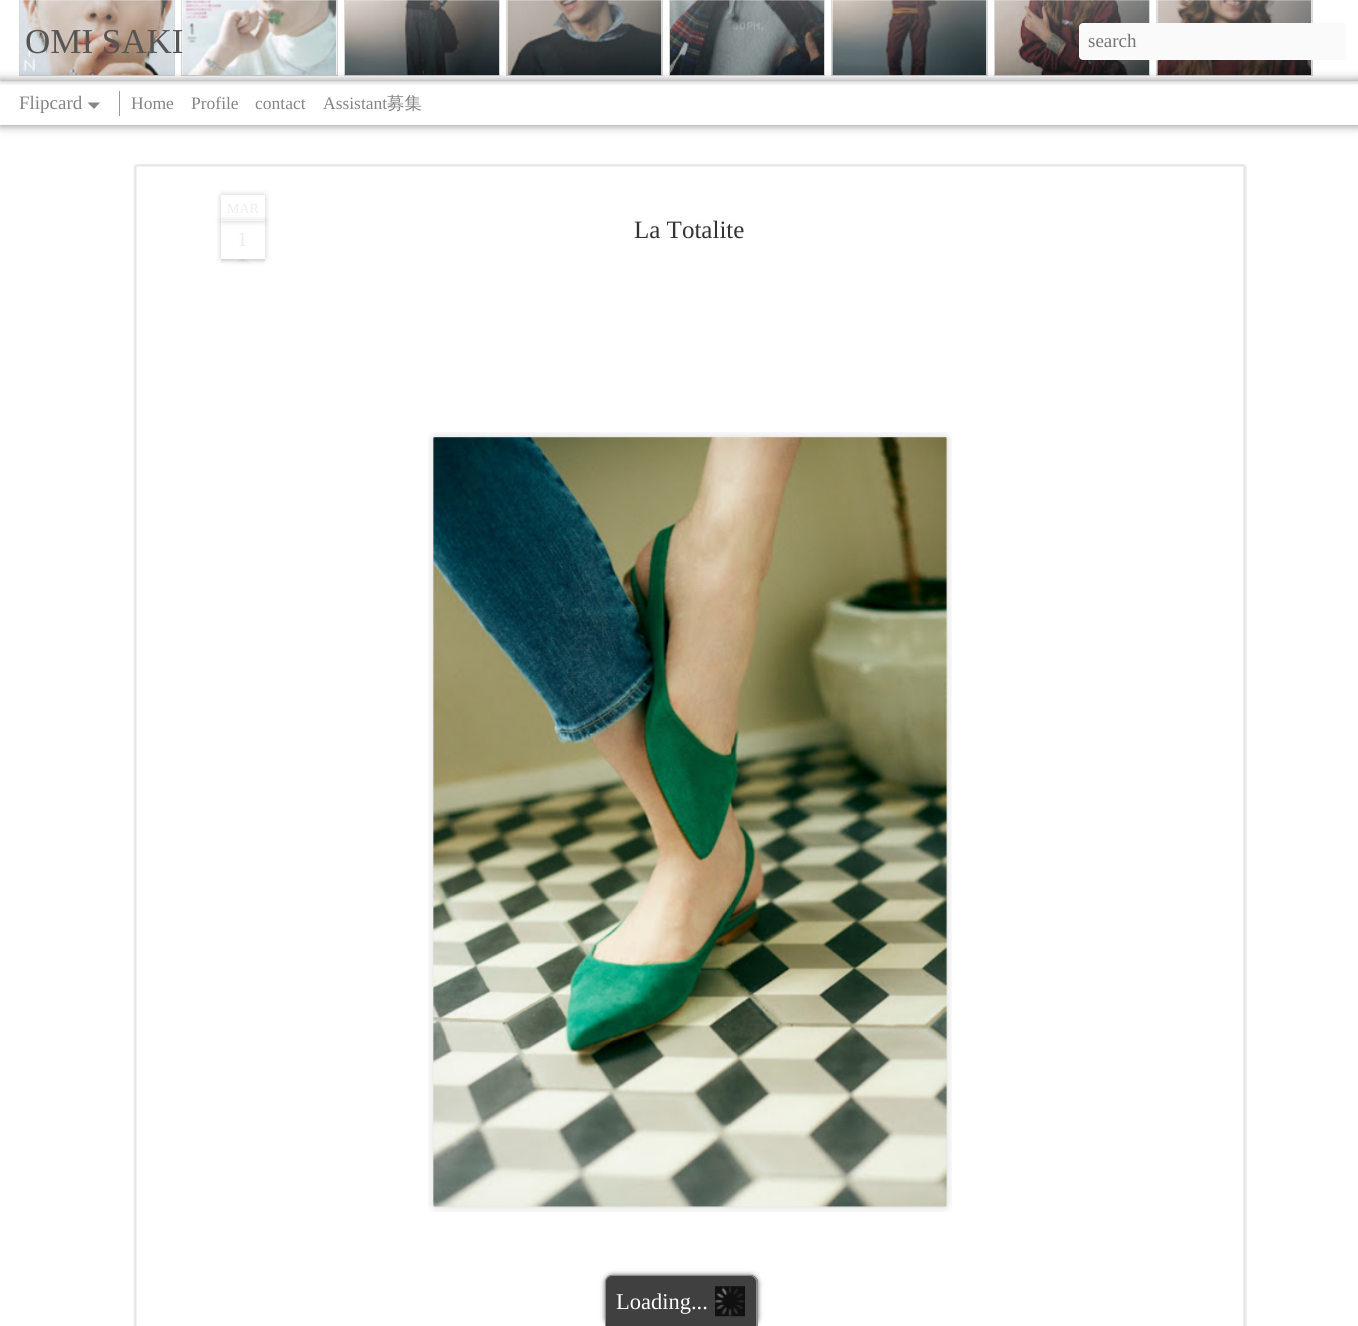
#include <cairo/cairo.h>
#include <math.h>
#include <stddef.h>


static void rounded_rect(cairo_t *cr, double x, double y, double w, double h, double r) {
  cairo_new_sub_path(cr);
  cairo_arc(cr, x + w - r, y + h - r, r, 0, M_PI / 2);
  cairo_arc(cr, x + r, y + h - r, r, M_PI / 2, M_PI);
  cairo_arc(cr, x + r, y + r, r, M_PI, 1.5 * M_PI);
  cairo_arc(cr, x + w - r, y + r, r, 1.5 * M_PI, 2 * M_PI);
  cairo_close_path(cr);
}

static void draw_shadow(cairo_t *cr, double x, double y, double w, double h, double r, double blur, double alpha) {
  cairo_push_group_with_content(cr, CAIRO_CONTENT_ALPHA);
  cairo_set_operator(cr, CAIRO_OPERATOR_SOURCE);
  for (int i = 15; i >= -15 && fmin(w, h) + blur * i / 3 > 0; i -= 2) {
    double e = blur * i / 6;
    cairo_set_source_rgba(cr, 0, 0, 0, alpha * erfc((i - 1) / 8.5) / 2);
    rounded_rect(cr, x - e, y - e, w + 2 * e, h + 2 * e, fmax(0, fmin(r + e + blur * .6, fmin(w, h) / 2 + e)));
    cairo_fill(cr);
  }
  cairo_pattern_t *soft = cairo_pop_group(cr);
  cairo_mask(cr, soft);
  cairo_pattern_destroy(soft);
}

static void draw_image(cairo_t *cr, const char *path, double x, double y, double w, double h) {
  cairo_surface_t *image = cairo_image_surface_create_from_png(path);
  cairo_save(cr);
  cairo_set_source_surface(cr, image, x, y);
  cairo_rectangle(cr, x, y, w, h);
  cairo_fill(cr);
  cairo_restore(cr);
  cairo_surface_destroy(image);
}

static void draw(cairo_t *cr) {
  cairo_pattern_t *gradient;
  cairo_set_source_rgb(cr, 1, 1, 1);
  cairo_paint(cr);
  cairo_rectangle(cr, 19.5, -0.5, 155, 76);
  cairo_set_source_rgb(cr, 204 / 255.0, 204 / 255.0, 204 / 255.0);
  cairo_set_line_width(cr, 1);
  cairo_stroke(cr);
  draw_image(cr, "images/1.png", 20, 0, 154, 76);
  cairo_rectangle(cr, 181.5, -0.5, 156, 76);
  cairo_stroke(cr);
  draw_image(cr, "images/2.png", 182, 0, 155, 75);
  cairo_rectangle(cr, 344.5, -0.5, 155, 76);
  cairo_stroke(cr);
  draw_image(cr, "images/3.png", 345, 0, 154, 76);
  cairo_rectangle(cr, 506.5, -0.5, 156, 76);
  cairo_stroke(cr);
  draw_image(cr, "images/4.png", 507, 0, 155, 76);
  cairo_rectangle(cr, 669.5, -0.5, 155, 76);
  cairo_stroke(cr);
  draw_image(cr, "images/5.png", 670, 0, 154, 76);
  cairo_rectangle(cr, 831.5, -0.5, 156, 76);
  cairo_stroke(cr);
  draw_image(cr, "images/6.png", 832, 0, 155, 76);
  cairo_rectangle(cr, 994.5, -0.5, 155, 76);
  cairo_stroke(cr);
  draw_image(cr, "images/7.png", 995, 0, 154, 76);
  cairo_rectangle(cr, 1156.5, -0.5, 156, 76);
  cairo_stroke(cr);
  draw_image(cr, "images/8.png", 1157, 0, 155, 76);
  cairo_set_source_rgb(cr, 0, 0, 0);
  draw_shadow(cr, 0, 81, 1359, 44, 0, 5, 0.5);
  cairo_set_source_rgb(cr, 1, 1, 1);
  cairo_rectangle(cr, 0, 81, 1358, 44);
  cairo_fill(cr);
  cairo_save(cr);
  cairo_rectangle(cr, 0, 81, 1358, 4);
  cairo_clip(cr);
  cairo_set_source_rgb(cr, 0, 0, 0);
  draw_shadow(cr, 0, 0, 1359, 81, 0, 3, 0.3);
  cairo_restore(cr);
  gradient = cairo_pattern_create_linear(0, 0, 0, 81);
  cairo_pattern_add_color_stop_rgba(gradient, 0, 1, 1, 1, 0.3);
  cairo_pattern_add_color_stop_rgba(gradient, 1, 1, 1, 1, 0.05);
  cairo_set_source(cr, gradient);
  cairo_pattern_destroy(gradient);
  cairo_rectangle(cr, 6, 0, 1347, 81);
  cairo_fill(cr);
  cairo_set_source_rgb(cr, 250 / 255.0, 250 / 255.0, 250 / 255.0);
  rounded_rect(cr, 1079, 23, 267, 37, 4);
  cairo_fill(cr);
  cairo_set_source_rgb(cr, 133 / 255.0, 133 / 255.0, 133 / 255.0);
  cairo_new_path(cr);
  cairo_move_to(cr, 87.5, 102.5);
  cairo_line_to(cr, 100, 102.5);
  cairo_line_to(cr, 94, 109);
  cairo_close_path(cr);
  cairo_fill(cr);
  cairo_set_source_rgb(cr, 153 / 255.0, 153 / 255.0, 153 / 255.0);
  cairo_rectangle(cr, 119, 91, 1, 25);
  cairo_fill(cr);
  draw_image(cr, "images/9.png", 133, 164, 1114, 1162);
  cairo_save(cr);
  cairo_set_fill_rule(cr, CAIRO_FILL_RULE_EVEN_ODD);
  cairo_new_path(cr);
  cairo_move_to(cr, 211, 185);
  cairo_line_to(cr, 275, 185);
  cairo_line_to(cr, 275, 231);
  cairo_line_to(cr, 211, 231);
  cairo_close_path(cr);
  cairo_move_to(cr, 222, 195);
  cairo_line_to(cr, 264, 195);
  cairo_curve_to(cr, 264.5, 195, 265, 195.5, 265, 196);
  cairo_line_to(cr, 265, 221);
  cairo_line_to(cr, 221, 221);
  cairo_line_to(cr, 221, 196);
  cairo_curve_to(cr, 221, 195.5, 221.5, 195, 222, 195);
  cairo_close_path(cr);
  cairo_clip(cr);
  cairo_set_source_rgb(cr, 0, 0, 0);
  draw_shadow(cr, 221, 195, 44, 26, 1, 3, 0.2);
  cairo_restore(cr);
  cairo_save(cr);
  cairo_set_fill_rule(cr, CAIRO_FILL_RULE_EVEN_ODD);
  cairo_new_path(cr);
  cairo_move_to(cr, 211, 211);
  cairo_line_to(cr, 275, 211);
  cairo_line_to(cr, 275, 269);
  cairo_line_to(cr, 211, 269);
  cairo_close_path(cr);
  cairo_move_to(cr, 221, 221);
  cairo_line_to(cr, 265, 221);
  cairo_line_to(cr, 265, 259);
  cairo_line_to(cr, 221, 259);
  cairo_close_path(cr);
  cairo_clip(cr);
  cairo_set_source_rgb(cr, 0, 0, 0);
  draw_shadow(cr, 221, 221, 44, 38, 0, 3, 0.2);
  cairo_restore(cr);
  cairo_set_source_rgba(cr, 1, 1, 1, 0.6);
  cairo_rectangle(cr, 221, 220, 44, 1);
  cairo_fill(cr);
  cairo_save(cr);
  cairo_rectangle(cr, 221, 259, 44, 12);
  cairo_clip(cr);
  cairo_set_fill_rule(cr, CAIRO_FILL_RULE_EVEN_ODD);
  cairo_new_path(cr);
  cairo_move_to(cr, 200, 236);
  cairo_line_to(cr, 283, 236);
  cairo_line_to(cr, 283, 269);
  cairo_line_to(cr, 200, 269);
  cairo_close_path(cr);
  cairo_move_to(cr, 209.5, 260);
  cairo_line_to(cr, 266.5, 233.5);
  cairo_line_to(cr, 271.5, 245);
  cairo_line_to(cr, 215, 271.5);
  cairo_close_path(cr);
  cairo_clip(cr);
  cairo_set_source_rgb(cr, 0, 0, 0);
  draw_shadow(cr, 210, 246, 63, 13, 0, 3, 0.2);
  cairo_restore(cr);
  cairo_save(cr);
  cairo_rectangle(cr, 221, 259, 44, 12);
  cairo_clip(cr);
  cairo_set_fill_rule(cr, CAIRO_FILL_RULE_EVEN_ODD);
  cairo_new_path(cr);
  cairo_move_to(cr, 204, 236);
  cairo_line_to(cr, 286, 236);
  cairo_line_to(cr, 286, 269);
  cairo_line_to(cr, 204, 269);
  cairo_close_path(cr);
  cairo_move_to(cr, 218.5, 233.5);
  cairo_line_to(cr, 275.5, 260);
  cairo_line_to(cr, 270, 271.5);
  cairo_line_to(cr, 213.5, 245);
  cairo_close_path(cr);
  cairo_clip(cr);
  cairo_set_source_rgb(cr, 0, 0, 0);
  draw_shadow(cr, 214, 246, 62, 13, 0, 3, 0.2);
  cairo_restore(cr);
  draw_image(cr, "images/10.png", 428, 432, 524, 780);
  draw_image(cr, "images/11.png", 433, 437, 515, 771);
  cairo_set_source_rgb(cr, 102 / 255.0, 102 / 255.0, 102 / 255.0);
  draw_shadow(cr, 605, 1275, 153, 51, 8, 2.5, 1);
  cairo_set_source_rgb(cr, 64 / 255.0, 64 / 255.0, 64 / 255.0);
  cairo_new_path(cr);
  cairo_move_to(cr, 613, 1275);
  cairo_line_to(cr, 750, 1275);
  cairo_curve_to(cr, 754.5, 1275, 758, 1278.5, 758, 1283);
  cairo_line_to(cr, 758, 1326);
  cairo_line_to(cr, 605, 1326);
  cairo_line_to(cr, 605, 1283);
  cairo_curve_to(cr, 605, 1278.5, 608.5, 1275, 613, 1275);
  cairo_close_path(cr);
  cairo_fill(cr);
  cairo_set_source_rgb(cr, 140 / 255.0, 140 / 255.0, 140 / 255.0);
  cairo_set_fill_rule(cr, CAIRO_FILL_RULE_EVEN_ODD);
  cairo_new_path(cr);
  cairo_move_to(cr, 612, 1275);
  cairo_line_to(cr, 750, 1275);
  cairo_curve_to(cr, 754, 1275, 758, 1278, 758, 1282);
  cairo_line_to(cr, 758, 1326);
  cairo_line_to(cr, 605, 1326);
  cairo_line_to(cr, 605, 1282);
  cairo_curve_to(cr, 605, 1278, 608, 1275, 612, 1275);
  cairo_close_path(cr);
  cairo_move_to(cr, 612, 1276);
  cairo_line_to(cr, 750, 1276);
  cairo_curve_to(cr, 753, 1276, 756, 1279, 756, 1282);
  cairo_line_to(cr, 756, 1326);
  cairo_line_to(cr, 606, 1326);
  cairo_line_to(cr, 606, 1282);
  cairo_curve_to(cr, 606, 1279, 609, 1276, 612, 1276);
  cairo_close_path(cr);
  cairo_fill(cr);
  draw_image(cr, "images/12.png", 715, 1286, 30, 31);
  cairo_select_font_face(cr, "Liberation Serif", CAIRO_FONT_SLANT_NORMAL, CAIRO_FONT_WEIGHT_NORMAL);
  cairo_set_font_size(cr, 35);
  cairo_set_source_rgb(cr, 85 / 255.0, 85 / 255.0, 85 / 255.0);
  cairo_move_to(cr, 25, 53);
  cairo_show_text(cr, "OMI SAKI");
  cairo_set_font_size(cr, 19);
  cairo_set_source_rgb(cr, 117 / 255.0, 117 / 255.0, 117 / 255.0);
  cairo_move_to(cr, 1088, 47);
  cairo_show_text(cr, "search");
  cairo_set_source_rgb(cr, 133 / 255.0, 133 / 255.0, 133 / 255.0);
  cairo_move_to(cr, 19, 109);
  cairo_show_text(cr, "Flipcard");
  cairo_set_font_size(cr, 17.5);
  cairo_move_to(cr, 131, 109);
  cairo_show_text(cr, "Home");
  cairo_move_to(cr, 191, 109);
  cairo_show_text(cr, "Profile");
  cairo_move_to(cr, 255, 109);
  cairo_show_text(cr, "contact");
  cairo_move_to(cr, 323, 109);
  cairo_show_text(cr, "Assistant");
  cairo_select_font_face(cr, "WenQuanYi Zen Hei Medium", CAIRO_FONT_SLANT_NORMAL, CAIRO_FONT_WEIGHT_NORMAL);
  cairo_move_to(cr, 387, 109);
  cairo_show_text(cr, "募集");
  cairo_select_font_face(cr, "Liberation Serif", CAIRO_FONT_SLANT_NORMAL, CAIRO_FONT_WEIGHT_NORMAL);
  cairo_set_font_size(cr, 14);
  cairo_set_source_rgb(cr, 238 / 255.0, 238 / 255.0, 238 / 255.0);
  cairo_move_to(cr, 227, 213);
  cairo_show_text(cr, "MAR");
  cairo_set_font_size(cr, 21);
  cairo_move_to(cr, 237, 246);
  cairo_show_text(cr, "1");
  cairo_set_font_size(cr, 25);
  cairo_set_source_rgb(cr, 51 / 255.0, 51 / 255.0, 51 / 255.0);
  cairo_move_to(cr, 634, 238);
  cairo_show_text(cr, "La Totalite");
  cairo_set_font_size(cr, 22.5);
  cairo_set_source_rgb(cr, 1, 1, 1);
  cairo_move_to(cr, 616, 1309);
  cairo_show_text(cr, "Loading...");
}

int main(void) {
  cairo_surface_t *surface = cairo_image_surface_create(CAIRO_FORMAT_RGB24, 1358, 1326);
  cairo_t *cr = cairo_create(surface);
  cairo_font_options_t *options = cairo_font_options_create();
  cairo_font_options_set_hint_metrics(options, CAIRO_HINT_METRICS_OFF);
  cairo_font_options_set_hint_style(options, CAIRO_HINT_STYLE_NONE);
  cairo_set_font_options(cr, options);
  cairo_set_miter_limit(cr, 4);
  draw(cr);
  cairo_surface_write_to_png(surface, "out.png");
  cairo_font_options_destroy(options);
  cairo_destroy(cr);
  cairo_surface_destroy(surface);
  return 0;
}
